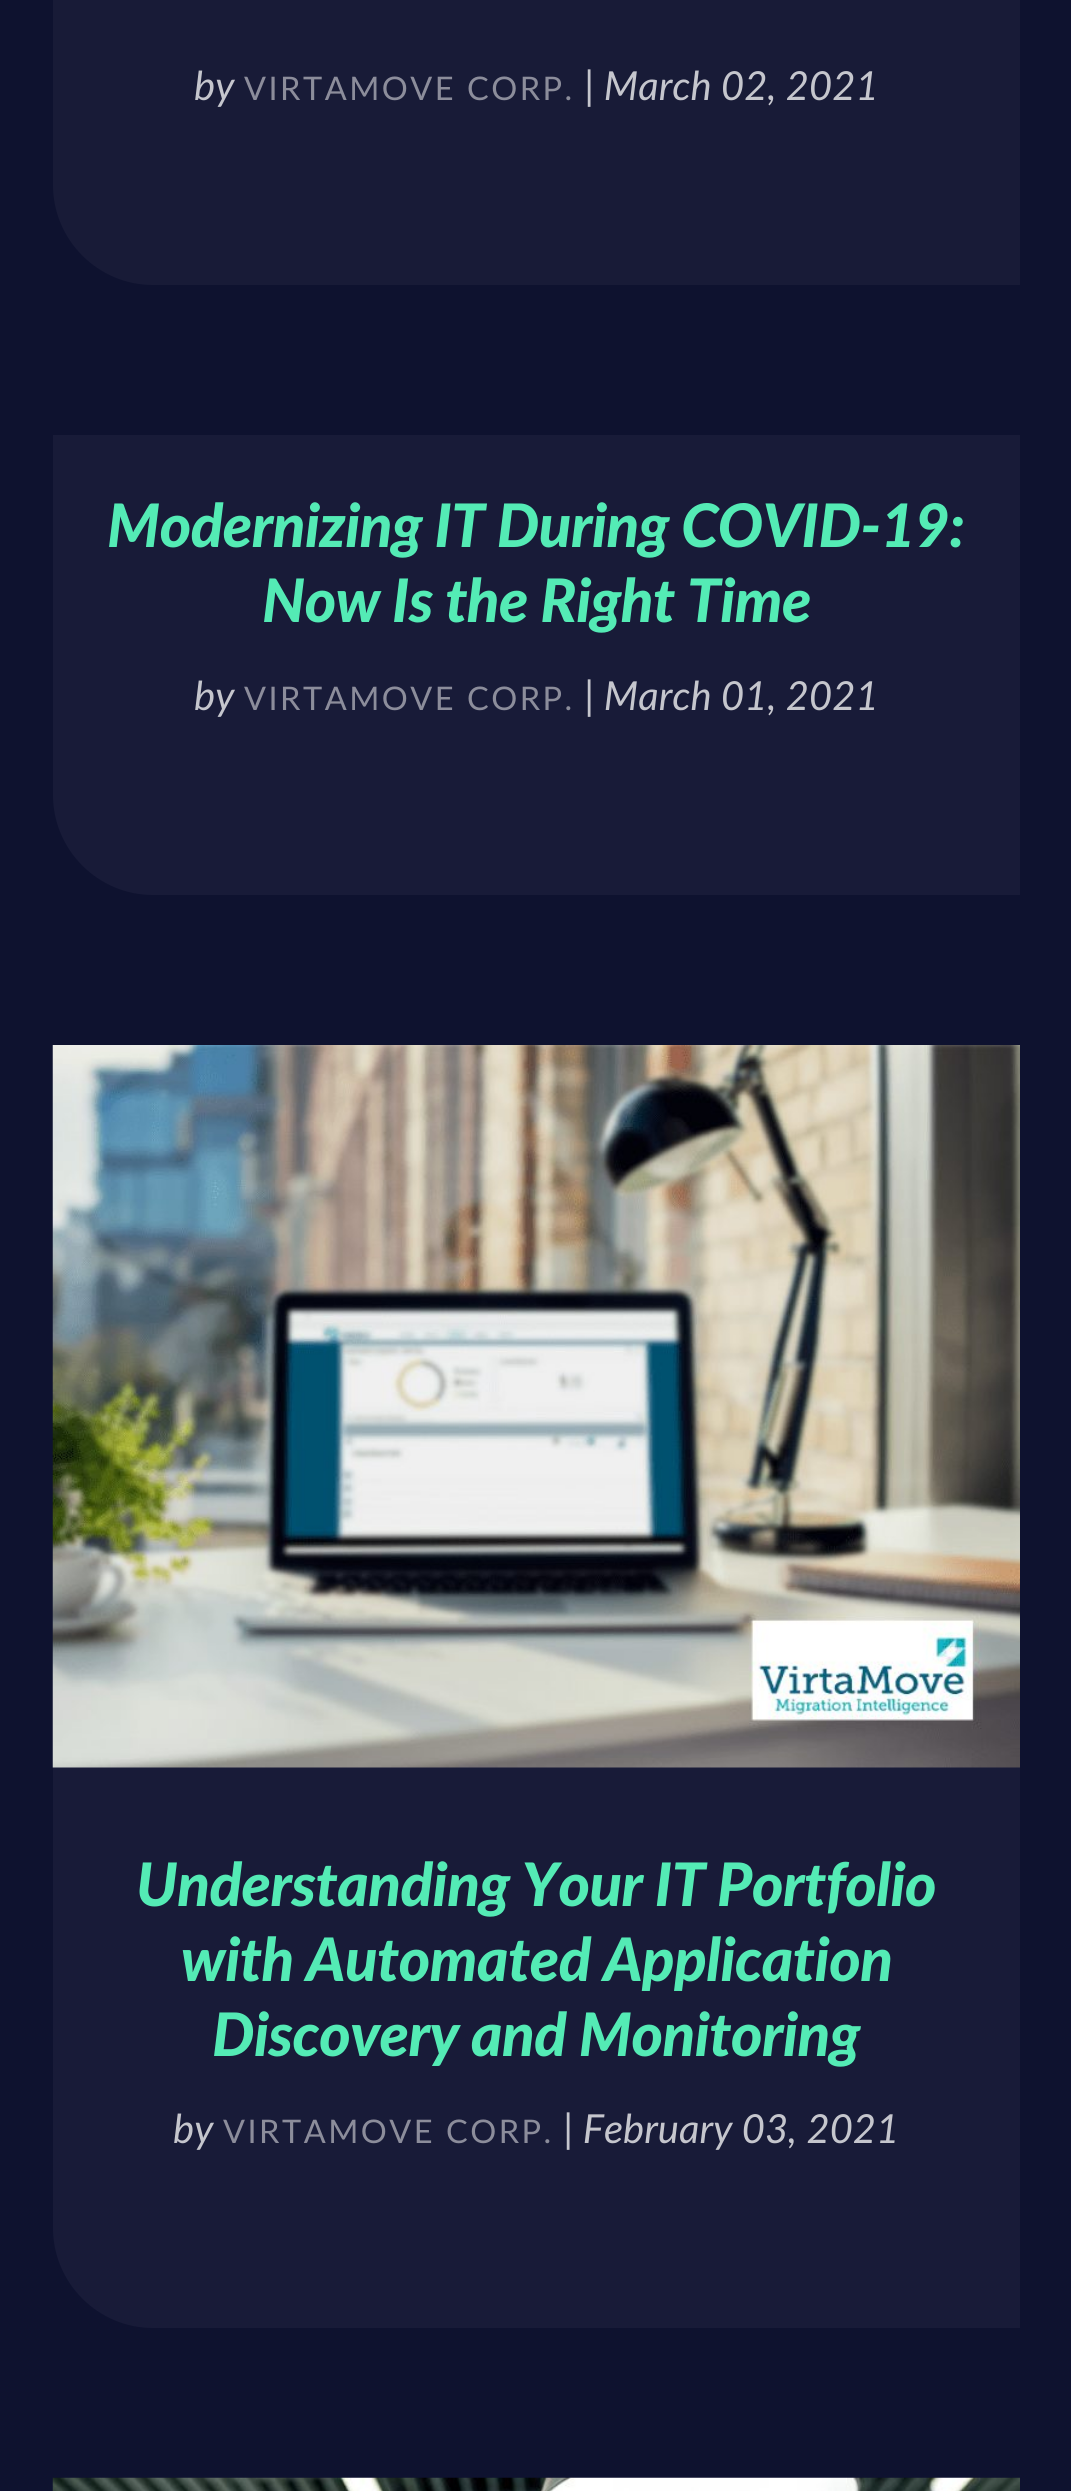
#include <cairo/cairo.h>
#include <math.h>
#include <stddef.h>


static void draw_spaced(cairo_t *cr, double x, double y, const char *s, double letter, double word) {
  cairo_move_to(cr, x, y);
  while (*s) {
    char ch[5] = {0};
    int n = 0;
    do ch[n++] = *s++; while ((*s & 0xC0) == 0x80);
    cairo_show_text(cr, ch);
    cairo_rel_move_to(cr, letter + word * (*ch == ' '), 0);
  }
}

static void draw_image(cairo_t *cr, const char *path, double x, double y, double w, double h) {
  cairo_surface_t *image = cairo_image_surface_create_from_png(path);
  cairo_save(cr);
  cairo_set_source_surface(cr, image, x, y);
  cairo_rectangle(cr, x, y, w, h);
  cairo_fill(cr);
  cairo_restore(cr);
  cairo_surface_destroy(image);
}

static void draw(cairo_t *cr) {
  cairo_set_source_rgb(cr, 14 / 255.0, 18 / 255.0, 47 / 255.0);
  cairo_paint(cr);
  cairo_set_source_rgb(cr, 24 / 255.0, 27 / 255.0, 55 / 255.0);
  cairo_new_path(cr);
  cairo_move_to(cr, 53, -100);
  cairo_line_to(cr, 1020, -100);
  cairo_line_to(cr, 1020, 285);
  cairo_line_to(cr, 153, 285);
  cairo_curve_to(cr, 98, 285, 53, 240, 53, 185);
  cairo_close_path(cr);
  cairo_fill(cr);
  cairo_set_source_rgb(cr, 24 / 255.0, 27 / 255.0, 56 / 255.0);
  cairo_new_path(cr);
  cairo_move_to(cr, 53, 435);
  cairo_line_to(cr, 1020, 435);
  cairo_line_to(cr, 1020, 895);
  cairo_line_to(cr, 153, 895);
  cairo_curve_to(cr, 98, 895, 53, 850, 53, 795);
  cairo_close_path(cr);
  cairo_fill(cr);
  cairo_new_path(cr);
  cairo_move_to(cr, 53, 1045);
  cairo_line_to(cr, 1020, 1045);
  cairo_line_to(cr, 1020, 2328);
  cairo_line_to(cr, 153, 2328);
  cairo_curve_to(cr, 98, 2328, 53, 2283, 53, 2228);
  cairo_close_path(cr);
  cairo_fill(cr);
  draw_image(cr, "images/1.png", 52, 1045, 968, 723);
  draw_image(cr, "images/2.png", 52, 2477, 968, 14);
  cairo_select_font_face(cr, "Lato", CAIRO_FONT_SLANT_ITALIC, CAIRO_FONT_WEIGHT_NORMAL);
  cairo_set_font_size(cr, 40);
  cairo_set_source_rgb(cr, 197 / 255.0, 198 / 255.0, 205 / 255.0);
  cairo_move_to(cr, 194, 100);
  cairo_show_text(cr, "by");
  cairo_select_font_face(cr, "Lato", CAIRO_FONT_SLANT_NORMAL, CAIRO_FONT_WEIGHT_NORMAL);
  cairo_set_font_size(cr, 32.5);
  cairo_set_source_rgb(cr, 140 / 255.0, 141 / 255.0, 155 / 255.0);
  draw_spaced(cr, 244, 100, "VIRTAMOVE CORP.", 2.5, 0);
  cairo_select_font_face(cr, "Lato", CAIRO_FONT_SLANT_ITALIC, CAIRO_FONT_WEIGHT_NORMAL);
  cairo_set_font_size(cr, 40);
  cairo_set_source_rgb(cr, 197 / 255.0, 198 / 255.0, 205 / 255.0);
  cairo_move_to(cr, 584, 100);
  cairo_show_text(cr, "| March 02, 2021");
  cairo_select_font_face(cr, "Lato Black", CAIRO_FONT_SLANT_ITALIC, CAIRO_FONT_WEIGHT_NORMAL);
  cairo_set_font_size(cr, 60);
  cairo_set_source_rgb(cr, 84 / 255.0, 235 / 255.0, 181 / 255.0);
  draw_spaced(cr, 107, 547, "Modernizing IT During COVID-19:", -0.5, 0);
  draw_spaced(cr, 262, 622, "Now Is the Right Time", -0.5, 0);
  cairo_select_font_face(cr, "Lato", CAIRO_FONT_SLANT_ITALIC, CAIRO_FONT_WEIGHT_NORMAL);
  cairo_set_font_size(cr, 40);
  cairo_set_source_rgb(cr, 197 / 255.0, 198 / 255.0, 205 / 255.0);
  cairo_move_to(cr, 194, 710);
  cairo_show_text(cr, "by");
  cairo_select_font_face(cr, "Lato", CAIRO_FONT_SLANT_NORMAL, CAIRO_FONT_WEIGHT_NORMAL);
  cairo_set_font_size(cr, 32.5);
  cairo_set_source_rgb(cr, 140 / 255.0, 141 / 255.0, 155 / 255.0);
  draw_spaced(cr, 244, 710, "VIRTAMOVE CORP.", 2.5, 0);
  cairo_select_font_face(cr, "Lato", CAIRO_FONT_SLANT_ITALIC, CAIRO_FONT_WEIGHT_NORMAL);
  cairo_set_font_size(cr, 40);
  cairo_set_source_rgb(cr, 197 / 255.0, 198 / 255.0, 205 / 255.0);
  cairo_move_to(cr, 584, 710);
  cairo_show_text(cr, "| March 01, 2021");
  cairo_select_font_face(cr, "Lato Black", CAIRO_FONT_SLANT_ITALIC, CAIRO_FONT_WEIGHT_NORMAL);
  cairo_set_font_size(cr, 60);
  cairo_set_source_rgb(cr, 84 / 255.0, 235 / 255.0, 181 / 255.0);
  draw_spaced(cr, 136, 1906, "Understanding Your IT Portfolio", -0.5, 0);
  draw_spaced(cr, 181, 1981, "with Automated Application", -0.5, 0);
  draw_spaced(cr, 212, 2056, "Discovery and Monitoring", -0.5, 0);
  cairo_select_font_face(cr, "Lato", CAIRO_FONT_SLANT_ITALIC, CAIRO_FONT_WEIGHT_NORMAL);
  cairo_set_font_size(cr, 40);
  cairo_set_source_rgb(cr, 197 / 255.0, 198 / 255.0, 205 / 255.0);
  cairo_move_to(cr, 173, 2143);
  cairo_show_text(cr, "by");
  cairo_select_font_face(cr, "Lato", CAIRO_FONT_SLANT_NORMAL, CAIRO_FONT_WEIGHT_NORMAL);
  cairo_set_font_size(cr, 32.5);
  cairo_set_source_rgb(cr, 140 / 255.0, 141 / 255.0, 155 / 255.0);
  draw_spaced(cr, 223, 2143, "VIRTAMOVE CORP.", 2.5, 0);
  cairo_select_font_face(cr, "Lato", CAIRO_FONT_SLANT_ITALIC, CAIRO_FONT_WEIGHT_NORMAL);
  cairo_set_font_size(cr, 40);
  cairo_set_source_rgb(cr, 197 / 255.0, 198 / 255.0, 205 / 255.0);
  cairo_move_to(cr, 563, 2143);
  cairo_show_text(cr, "| February 03, 2021");
}

int main(void) {
  cairo_surface_t *surface = cairo_image_surface_create(CAIRO_FORMAT_RGB24, 1071, 2491);
  cairo_t *cr = cairo_create(surface);
  cairo_font_options_t *options = cairo_font_options_create();
  cairo_font_options_set_hint_metrics(options, CAIRO_HINT_METRICS_OFF);
  cairo_font_options_set_hint_style(options, CAIRO_HINT_STYLE_NONE);
  cairo_set_font_options(cr, options);
  cairo_set_miter_limit(cr, 4);
  draw(cr);
  cairo_surface_write_to_png(surface, "out.png");
  cairo_font_options_destroy(options);
  cairo_destroy(cr);
  cairo_surface_destroy(surface);
  return 0;
}
